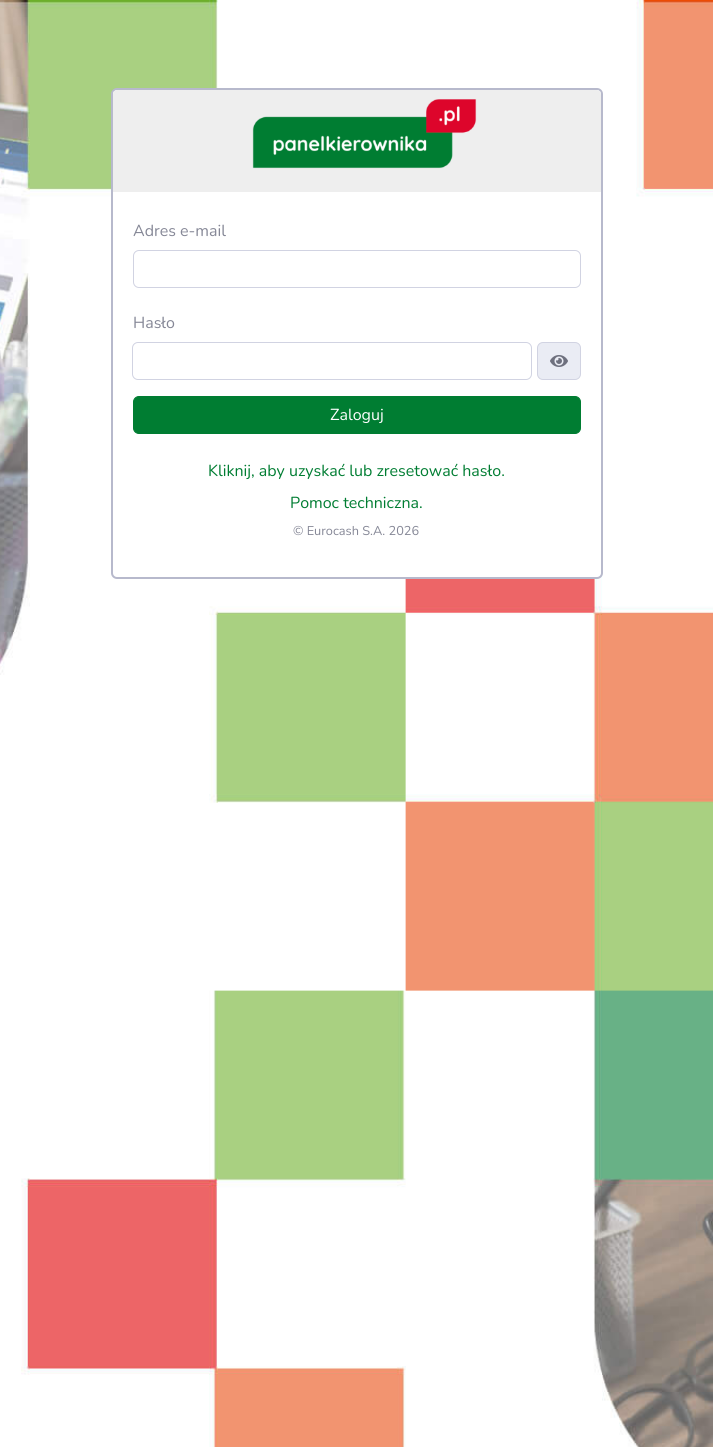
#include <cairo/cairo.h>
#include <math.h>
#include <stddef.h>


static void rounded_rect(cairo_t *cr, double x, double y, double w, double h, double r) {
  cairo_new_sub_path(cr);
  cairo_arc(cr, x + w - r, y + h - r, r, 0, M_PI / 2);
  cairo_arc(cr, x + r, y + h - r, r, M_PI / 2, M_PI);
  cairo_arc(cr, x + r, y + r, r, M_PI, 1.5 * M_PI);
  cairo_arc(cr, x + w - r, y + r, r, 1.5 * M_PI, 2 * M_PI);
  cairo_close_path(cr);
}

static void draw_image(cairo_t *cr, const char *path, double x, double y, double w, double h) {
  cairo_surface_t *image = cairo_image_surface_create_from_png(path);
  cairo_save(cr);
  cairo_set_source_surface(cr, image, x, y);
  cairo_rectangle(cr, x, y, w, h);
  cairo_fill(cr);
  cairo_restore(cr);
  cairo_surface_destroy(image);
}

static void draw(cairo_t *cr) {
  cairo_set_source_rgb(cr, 1, 1, 1);
  cairo_paint(cr);
  draw_image(cr, "images/1.png", 0, 0, 713, 1447);
  cairo_set_source_rgb(cr, 1, 1, 1);
  rounded_rect(cr, 112, 89, 490, 489, 5);
  cairo_fill_preserve(cr);
  cairo_set_source_rgb(cr, 183 / 255.0, 185 / 255.0, 204 / 255.0);
  cairo_stroke(cr);
  draw_image(cr, "images/2.png", 113, 90, 488, 102);
  rounded_rect(cr, 133.5, 250.5, 447, 37, 5.5);
  cairo_set_source_rgb(cr, 209 / 255.0, 211 / 255.0, 226 / 255.0);
  cairo_set_line_width(cr, 1);
  cairo_stroke(cr);
  rounded_rect(cr, 132.5, 342.5, 399, 37, 5.5);
  cairo_stroke(cr);
  cairo_set_source_rgb(cr, 234 / 255.0, 236 / 255.0, 244 / 255.0);
  rounded_rect(cr, 537.5, 342.5, 43, 37, 5.5);
  cairo_fill_preserve(cr);
  cairo_set_source_rgb(cr, 209 / 255.0, 211 / 255.0, 226 / 255.0);
  cairo_stroke(cr);
  draw_image(cr, "images/3.png", 550, 355, 18, 12);
  cairo_set_source_rgb(cr, 0, 125 / 255.0, 50 / 255.0);
  rounded_rect(cr, 133.5, 396.5, 447, 37, 5.5);
  cairo_fill_preserve(cr);
  cairo_stroke(cr);
  cairo_select_font_face(cr, "Nunito", CAIRO_FONT_SLANT_NORMAL, CAIRO_FONT_WEIGHT_NORMAL);
  cairo_set_font_size(cr, 16);
  cairo_set_source_rgb(cr, 133 / 255.0, 135 / 255.0, 150 / 255.0);
  cairo_move_to(cr, 133, 236);
  cairo_show_text(cr, "Adres e-mail");
  cairo_move_to(cr, 133, 328);
  cairo_show_text(cr, "Hasło");
  cairo_set_source_rgb(cr, 1, 1, 1);
  cairo_move_to(cr, 330, 420);
  cairo_show_text(cr, "Zaloguj");
  cairo_set_source_rgb(cr, 0, 125 / 255.0, 50 / 255.0);
  cairo_move_to(cr, 208, 476);
  cairo_show_text(cr, "Kliknij, aby uzyskać lub zresetować hasło.");
  cairo_move_to(cr, 290, 508);
  cairo_show_text(cr, "Pomoc techniczna.");
  cairo_set_font_size(cr, 12.75);
  cairo_set_source_rgb(cr, 133 / 255.0, 135 / 255.0, 150 / 255.0);
  cairo_move_to(cr, 293, 535);
  cairo_show_text(cr, "© Eurocash S.A. 2026");
}

int main(void) {
  cairo_surface_t *surface = cairo_image_surface_create(CAIRO_FORMAT_RGB24, 713, 1447);
  cairo_t *cr = cairo_create(surface);
  cairo_font_options_t *options = cairo_font_options_create();
  cairo_font_options_set_hint_metrics(options, CAIRO_HINT_METRICS_OFF);
  cairo_font_options_set_hint_style(options, CAIRO_HINT_STYLE_NONE);
  cairo_set_font_options(cr, options);
  cairo_set_miter_limit(cr, 4);
  draw(cr);
  cairo_surface_write_to_png(surface, "out.png");
  cairo_font_options_destroy(options);
  cairo_destroy(cr);
  cairo_surface_destroy(surface);
  return 0;
}
